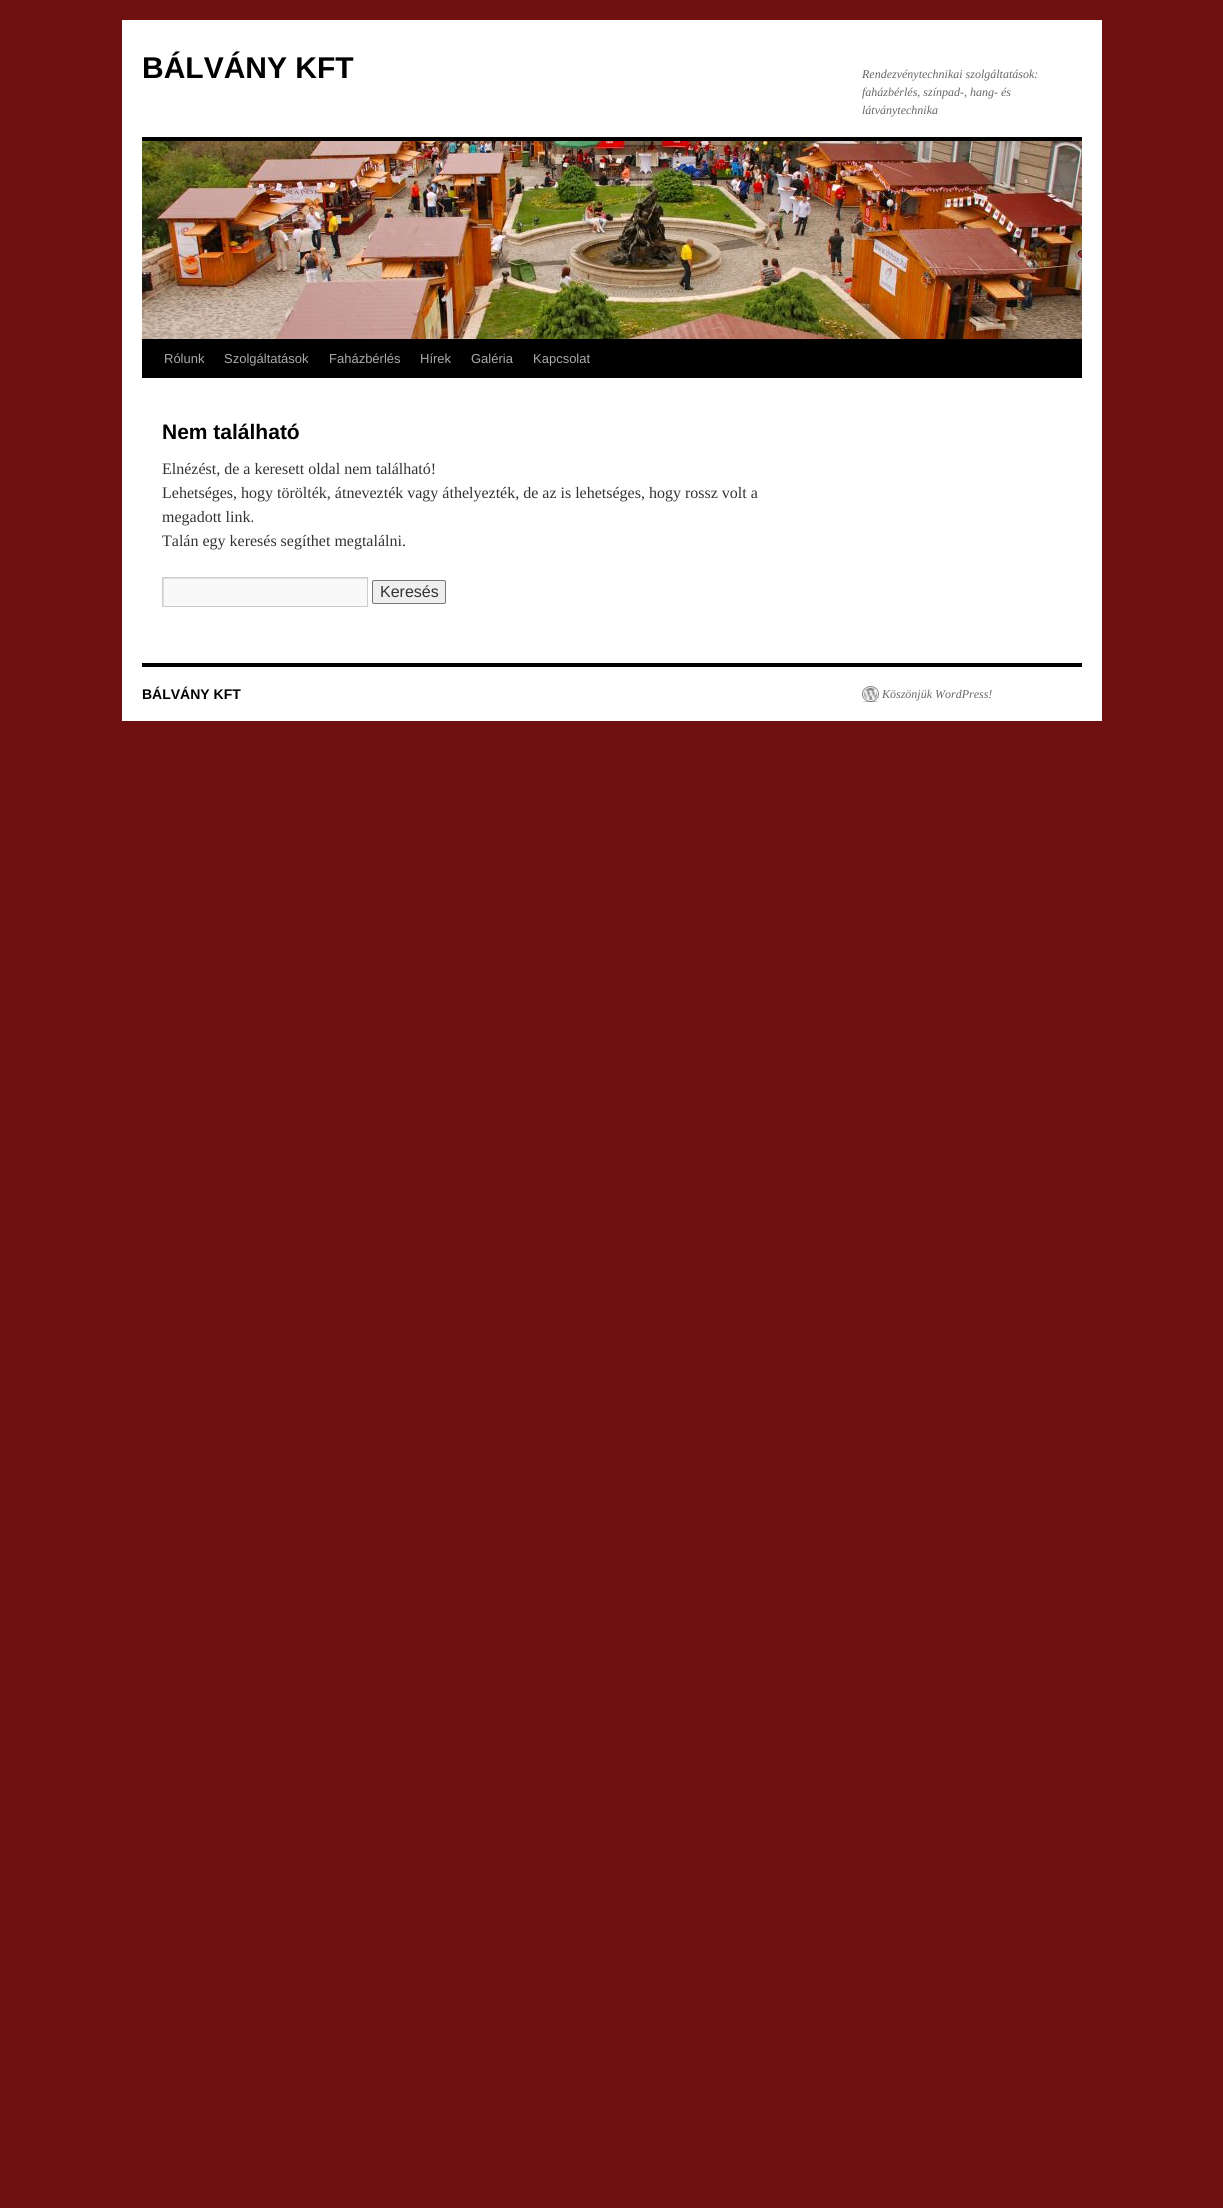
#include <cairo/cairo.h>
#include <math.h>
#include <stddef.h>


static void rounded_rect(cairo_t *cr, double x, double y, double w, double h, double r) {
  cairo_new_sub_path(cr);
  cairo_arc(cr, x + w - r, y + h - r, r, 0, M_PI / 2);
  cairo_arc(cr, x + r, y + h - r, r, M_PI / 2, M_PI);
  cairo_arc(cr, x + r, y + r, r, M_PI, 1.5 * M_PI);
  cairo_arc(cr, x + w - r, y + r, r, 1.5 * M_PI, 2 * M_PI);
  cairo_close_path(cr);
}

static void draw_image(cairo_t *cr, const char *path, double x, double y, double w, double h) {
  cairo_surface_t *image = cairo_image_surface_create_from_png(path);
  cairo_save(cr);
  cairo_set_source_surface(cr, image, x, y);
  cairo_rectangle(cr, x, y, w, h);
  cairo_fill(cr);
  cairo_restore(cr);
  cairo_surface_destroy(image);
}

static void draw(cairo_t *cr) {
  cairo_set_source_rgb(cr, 112 / 255.0, 16 / 255.0, 16 / 255.0);
  cairo_paint(cr);
  cairo_set_source_rgb(cr, 1, 1, 1);
  cairo_rectangle(cr, 122, 20, 980, 701);
  cairo_fill(cr);
  cairo_set_source_rgb(cr, 0, 0, 0);
  cairo_rectangle(cr, 142, 137, 940, 4);
  cairo_fill(cr);
  cairo_rectangle(cr, 142, 339, 940, 39);
  cairo_fill(cr);
  draw_image(cr, "images/1.png", 142, 141, 940, 198);
  cairo_set_source_rgb(cr, 249 / 255.0, 249 / 255.0, 249 / 255.0);
  cairo_rectangle(cr, 164, 579, 203, 27);
  cairo_fill(cr);
  cairo_save(cr);
  cairo_rectangle(cr, 163, 578, 204, 28);
  cairo_clip(cr);
  cairo_set_source_rgb(cr, 224 / 255.0, 224 / 255.0, 224 / 255.0);
  cairo_set_fill_rule(cr, CAIRO_FILL_RULE_EVEN_ODD);
  cairo_new_path(cr);
  cairo_move_to(cr, 64, 479);
  cairo_line_to(cr, 466, 479);
  cairo_line_to(cr, 466, 705);
  cairo_line_to(cr, 64, 705);
  cairo_close_path(cr);
  cairo_move_to(cr, 164, 579);
  cairo_line_to(cr, 368, 579);
  cairo_line_to(cr, 368, 607);
  cairo_line_to(cr, 164, 607);
  cairo_close_path(cr);
  cairo_fill(cr);
  cairo_restore(cr);
  cairo_rectangle(cr, 162.5, 577.5, 205, 29);
  cairo_set_source_rgb(cr, 204 / 255.0, 204 / 255.0, 204 / 255.0);
  cairo_set_line_width(cr, 1);
  cairo_stroke(cr);
  cairo_set_source_rgb(cr, 239 / 255.0, 239 / 255.0, 239 / 255.0);
  rounded_rect(cr, 372.5, 580.5, 73, 23, 1.5);
  cairo_fill_preserve(cr);
  cairo_set_source_rgb(cr, 118 / 255.0, 118 / 255.0, 118 / 255.0);
  cairo_stroke(cr);
  cairo_set_source_rgb(cr, 0, 0, 0);
  cairo_rectangle(cr, 142, 663, 940, 4);
  cairo_fill(cr);
  draw_image(cr, "images/2.png", 862, 686, 17, 16);
  cairo_select_font_face(cr, "Liberation Sans", CAIRO_FONT_SLANT_NORMAL, CAIRO_FONT_WEIGHT_BOLD);
  cairo_set_font_size(cr, 30);
  cairo_move_to(cr, 142, 78);
  cairo_show_text(cr, "BÁLVÁNY KFT");
  cairo_select_font_face(cr, "Liberation Serif", CAIRO_FONT_SLANT_ITALIC, CAIRO_FONT_WEIGHT_NORMAL);
  cairo_set_font_size(cr, 12);
  cairo_set_source_rgb(cr, 102 / 255.0, 102 / 255.0, 102 / 255.0);
  cairo_move_to(cr, 862, 78);
  cairo_show_text(cr, "Rendezvénytechnikai szolgáltatások:");
  cairo_move_to(cr, 862, 96);
  cairo_show_text(cr, "faházbérlés, színpad-, hang- és");
  cairo_move_to(cr, 862, 114);
  cairo_show_text(cr, "látványtechnika");
  cairo_select_font_face(cr, "Liberation Sans", CAIRO_FONT_SLANT_NORMAL, CAIRO_FONT_WEIGHT_NORMAL);
  cairo_set_font_size(cr, 13);
  cairo_set_source_rgb(cr, 170 / 255.0, 170 / 255.0, 170 / 255.0);
  cairo_move_to(cr, 164, 363);
  cairo_show_text(cr, "Rólunk");
  cairo_move_to(cr, 224, 363);
  cairo_show_text(cr, "Szolgáltatások");
  cairo_move_to(cr, 329, 363);
  cairo_show_text(cr, "Faházbérlés");
  cairo_move_to(cr, 420, 363);
  cairo_show_text(cr, "Hírek");
  cairo_move_to(cr, 471, 363);
  cairo_show_text(cr, "Galéria");
  cairo_move_to(cr, 533, 363);
  cairo_show_text(cr, "Kapcsolat");
  cairo_select_font_face(cr, "Liberation Sans", CAIRO_FONT_SLANT_NORMAL, CAIRO_FONT_WEIGHT_BOLD);
  cairo_set_font_size(cr, 21);
  cairo_set_source_rgb(cr, 0, 0, 0);
  cairo_move_to(cr, 162, 439);
  cairo_show_text(cr, "Nem található");
  cairo_select_font_face(cr, "Liberation Serif", CAIRO_FONT_SLANT_NORMAL, CAIRO_FONT_WEIGHT_NORMAL);
  cairo_set_font_size(cr, 16);
  cairo_set_source_rgb(cr, 51 / 255.0, 51 / 255.0, 51 / 255.0);
  cairo_move_to(cr, 162, 474);
  cairo_show_text(cr, "Elnézést, de a keresett oldal nem található!");
  cairo_move_to(cr, 162, 498);
  cairo_show_text(cr, "Lehetséges, hogy törölték, átnevezték vagy áthelyezték, de az is lehetséges, hogy rossz volt a");
  cairo_move_to(cr, 162, 522);
  cairo_show_text(cr, "megadott link.");
  cairo_move_to(cr, 162, 546);
  cairo_show_text(cr, "Talán egy keresés segíthet megtalálni.");
  cairo_select_font_face(cr, "Liberation Sans", CAIRO_FONT_SLANT_NORMAL, CAIRO_FONT_WEIGHT_NORMAL);
  cairo_move_to(cr, 380, 597);
  cairo_show_text(cr, "Keresés");
  cairo_select_font_face(cr, "Liberation Sans", CAIRO_FONT_SLANT_NORMAL, CAIRO_FONT_WEIGHT_BOLD);
  cairo_set_font_size(cr, 14);
  cairo_set_source_rgb(cr, 0, 0, 0);
  cairo_move_to(cr, 142, 699);
  cairo_show_text(cr, "BÁLVÁNY KFT");
  cairo_select_font_face(cr, "Liberation Serif", CAIRO_FONT_SLANT_ITALIC, CAIRO_FONT_WEIGHT_NORMAL);
  cairo_set_font_size(cr, 12);
  cairo_set_source_rgb(cr, 102 / 255.0, 102 / 255.0, 102 / 255.0);
  cairo_move_to(cr, 882, 698);
  cairo_show_text(cr, "Köszönjük WordPress!");
}

int main(void) {
  cairo_surface_t *surface = cairo_image_surface_create(CAIRO_FORMAT_RGB24, 1223, 2208);
  cairo_t *cr = cairo_create(surface);
  cairo_font_options_t *options = cairo_font_options_create();
  cairo_font_options_set_hint_metrics(options, CAIRO_HINT_METRICS_OFF);
  cairo_font_options_set_hint_style(options, CAIRO_HINT_STYLE_NONE);
  cairo_set_font_options(cr, options);
  cairo_set_miter_limit(cr, 4);
  draw(cr);
  cairo_surface_write_to_png(surface, "out.png");
  cairo_font_options_destroy(options);
  cairo_destroy(cr);
  cairo_surface_destroy(surface);
  return 0;
}
